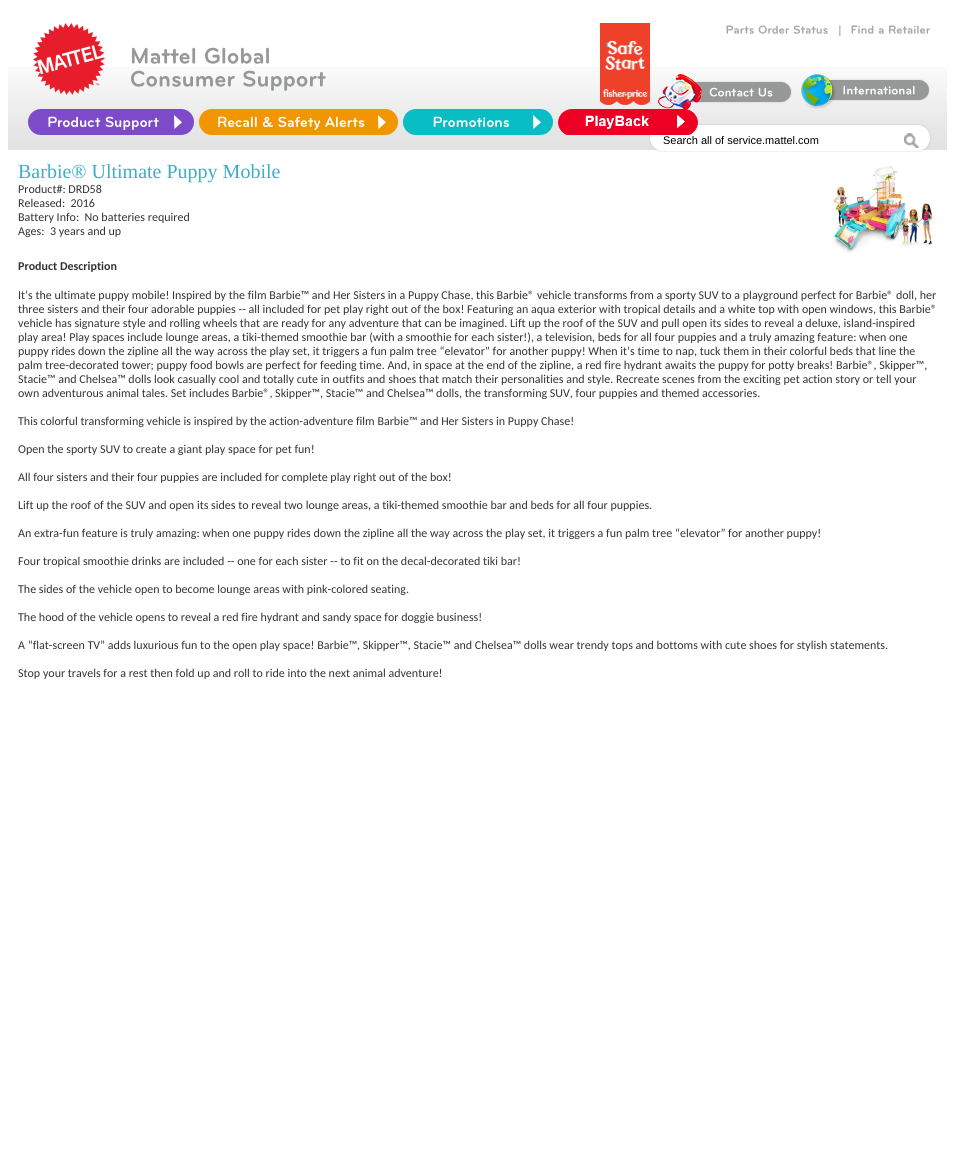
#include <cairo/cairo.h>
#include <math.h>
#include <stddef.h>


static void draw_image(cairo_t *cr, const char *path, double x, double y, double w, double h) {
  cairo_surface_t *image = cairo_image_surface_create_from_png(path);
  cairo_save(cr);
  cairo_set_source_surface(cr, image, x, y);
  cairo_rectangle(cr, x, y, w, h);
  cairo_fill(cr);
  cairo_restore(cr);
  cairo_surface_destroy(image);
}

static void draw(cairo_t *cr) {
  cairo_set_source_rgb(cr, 1, 1, 1);
  cairo_paint(cr);
  draw_image(cr, "images/1.png", 8, 67, 939, 83);
  draw_image(cr, "images/2.png", 33, 23, 72, 72);
  draw_image(cr, "images/3.png", 600, 23, 50, 82);
  draw_image(cr, "images/4.png", 726, 25, 28, 9);
  draw_image(cr, "images/5.png", 758, 25, 32, 9);
  draw_image(cr, "images/6.png", 793, 25, 35, 9);
  draw_image(cr, "images/7.png", 851, 25, 23, 9);
  draw_image(cr, "images/8.png", 878, 28, 6, 6);
  draw_image(cr, "images/9.png", 889, 25, 41, 9);
  draw_image(cr, "images/10.png", 658, 74, 134, 36);
  draw_image(cr, "images/11.png", 801, 74, 129, 35);
  draw_image(cr, "images/12.png", 131, 47, 65, 17);
  draw_image(cr, "images/13.png", 205, 47, 64, 17);
  draw_image(cr, "images/14.png", 131, 70, 104, 17);
  draw_image(cr, "images/15.png", 243, 70, 83, 21);
  draw_image(cr, "images/16.png", 28, 109, 166, 26);
  draw_image(cr, "images/17.png", 199, 109, 199, 26);
  draw_image(cr, "images/18.png", 403, 109, 150, 26);
  draw_image(cr, "images/20.png", 649, 124, 282, 28);
  draw_image(cr, "images/19.png", 558, 109, 140, 26);
  draw_image(cr, "images/21.png", 904, 133, 15, 15);
  draw_image(cr, "images/22.png", 828, 160, 106, 93);
  cairo_select_font_face(cr, "Carlito", CAIRO_FONT_SLANT_NORMAL, CAIRO_FONT_WEIGHT_BOLD);
  cairo_set_font_size(cr, 12);
  cairo_set_source_rgb(cr, 169 / 255.0, 167 / 255.0, 167 / 255.0);
  cairo_move_to(cr, 837, 34);
  cairo_show_text(cr, "|");
  cairo_select_font_face(cr, "Liberation Sans", CAIRO_FONT_SLANT_NORMAL, CAIRO_FONT_WEIGHT_NORMAL);
  cairo_set_font_size(cr, 11);
  cairo_set_source_rgb(cr, 0, 0, 0);
  cairo_move_to(cr, 663, 144);
  cairo_show_text(cr, "Search all of service.mattel.com");
  cairo_select_font_face(cr, "Liberation Serif", CAIRO_FONT_SLANT_NORMAL, CAIRO_FONT_WEIGHT_NORMAL);
  cairo_set_font_size(cr, 20);
  cairo_set_source_rgb(cr, 61 / 255.0, 174 / 255.0, 198 / 255.0);
  cairo_move_to(cr, 18, 178);
  cairo_show_text(cr, "Barbie® Ultimate Puppy Mobile");
  cairo_select_font_face(cr, "Carlito", CAIRO_FONT_SLANT_NORMAL, CAIRO_FONT_WEIGHT_NORMAL);
  cairo_set_font_size(cr, 12);
  cairo_set_source_rgb(cr, 51 / 255.0, 51 / 255.0, 51 / 255.0);
  cairo_move_to(cr, 18, 193);
  cairo_show_text(cr, "Product#: DRD58");
  cairo_move_to(cr, 18, 207);
  cairo_show_text(cr, "Released:  2016");
  cairo_move_to(cr, 18, 221);
  cairo_show_text(cr, "Battery Info:  No batteries required");
  cairo_move_to(cr, 18, 235);
  cairo_show_text(cr, "Ages:  3 years and up");
  cairo_select_font_face(cr, "Carlito", CAIRO_FONT_SLANT_NORMAL, CAIRO_FONT_WEIGHT_BOLD);
  cairo_move_to(cr, 18, 270);
  cairo_show_text(cr, "Product Description");
  cairo_select_font_face(cr, "Carlito", CAIRO_FONT_SLANT_NORMAL, CAIRO_FONT_WEIGHT_NORMAL);
  cairo_move_to(cr, 18, 299);
  cairo_show_text(cr, "It’s the ultimate puppy mobile! Inspired by the film Barbie™ and Her Sisters in a Puppy Chase, this Barbie® vehicle transforms from a sporty SUV to a playground perfect for Barbie® doll, her");
  cairo_move_to(cr, 18, 313);
  cairo_show_text(cr, "three sisters and their four adorable puppies -- all included for pet play right out of the box! Featuring an aqua exterior with tropical details and a white top with open windows, this Barbie®");
  cairo_move_to(cr, 18, 327);
  cairo_show_text(cr, "vehicle has signature style and rolling wheels that are ready for any adventure that can be imagined. Lift up the roof of the SUV and pull open its sides to reveal a deluxe, island-inspired");
  cairo_move_to(cr, 18, 341);
  cairo_show_text(cr, "play area! Play spaces include lounge areas, a tiki-themed smoothie bar (with a smoothie for each sister!), a television, beds for all four puppies and a truly amazing feature: when one");
  cairo_move_to(cr, 18, 355);
  cairo_show_text(cr, "puppy rides down the zipline all the way across the play set, it triggers a fun palm tree “elevator” for another puppy! When it’s time to nap, tuck them in their colorful beds that line the");
  cairo_move_to(cr, 18, 369);
  cairo_show_text(cr, "palm tree-decorated tower; puppy food bowls are perfect for feeding time. And, in space at the end of the zipline, a red fire hydrant awaits the puppy for potty breaks! Barbie®, Skipper™,");
  cairo_move_to(cr, 18, 383);
  cairo_show_text(cr, "Stacie™ and Chelsea™ dolls look casually cool and totally cute in outfits and shoes that match their personalities and style. Recreate scenes from the exciting pet action story or tell your");
  cairo_move_to(cr, 18, 397);
  cairo_show_text(cr, "own adventurous animal tales. Set includes Barbie®, Skipper™, Stacie™ and Chelsea™ dolls, the transforming SUV, four puppies and themed accessories.");
  cairo_move_to(cr, 18, 425);
  cairo_show_text(cr, "This colorful transforming vehicle is inspired by the action-adventure film Barbie™ and Her Sisters in Puppy Chase!");
  cairo_move_to(cr, 18, 453);
  cairo_show_text(cr, "Open the sporty SUV to create a giant play space for pet fun!");
  cairo_move_to(cr, 18, 481);
  cairo_show_text(cr, "All four sisters and their four puppies are included for complete play right out of the box!");
  cairo_move_to(cr, 18, 509);
  cairo_show_text(cr, "Lift up the roof of the SUV and open its sides to reveal two lounge areas, a tiki-themed smoothie bar and beds for all four puppies.");
  cairo_move_to(cr, 18, 537);
  cairo_show_text(cr, "An extra-fun feature is truly amazing: when one puppy rides down the zipline all the way across the play set, it triggers a fun palm tree “elevator” for another puppy!");
  cairo_move_to(cr, 18, 565);
  cairo_show_text(cr, "Four tropical smoothie drinks are included -- one for each sister -- to fit on the decal-decorated tiki bar!");
  cairo_move_to(cr, 18, 593);
  cairo_show_text(cr, "The sides of the vehicle open to become lounge areas with pink-colored seating.");
  cairo_move_to(cr, 18, 621);
  cairo_show_text(cr, "The hood of the vehicle opens to reveal a red fire hydrant and sandy space for doggie business!");
  cairo_move_to(cr, 18, 649);
  cairo_show_text(cr, "A “flat-screen TV” adds luxurious fun to the open play space! Barbie™, Skipper™, Stacie™ and Chelsea™ dolls wear trendy tops and bottoms with cute shoes for stylish statements.");
  cairo_move_to(cr, 18, 677);
  cairo_show_text(cr, "Stop your travels for a rest then fold up and roll to ride into the next animal adventure!");
}

int main(void) {
  cairo_surface_t *surface = cairo_image_surface_create(CAIRO_FORMAT_RGB24, 955, 1159);
  cairo_t *cr = cairo_create(surface);
  cairo_font_options_t *options = cairo_font_options_create();
  cairo_font_options_set_hint_metrics(options, CAIRO_HINT_METRICS_OFF);
  cairo_font_options_set_hint_style(options, CAIRO_HINT_STYLE_NONE);
  cairo_set_font_options(cr, options);
  cairo_set_miter_limit(cr, 4);
  draw(cr);
  cairo_surface_write_to_png(surface, "out.png");
  cairo_font_options_destroy(options);
  cairo_destroy(cr);
  cairo_surface_destroy(surface);
  return 0;
}
